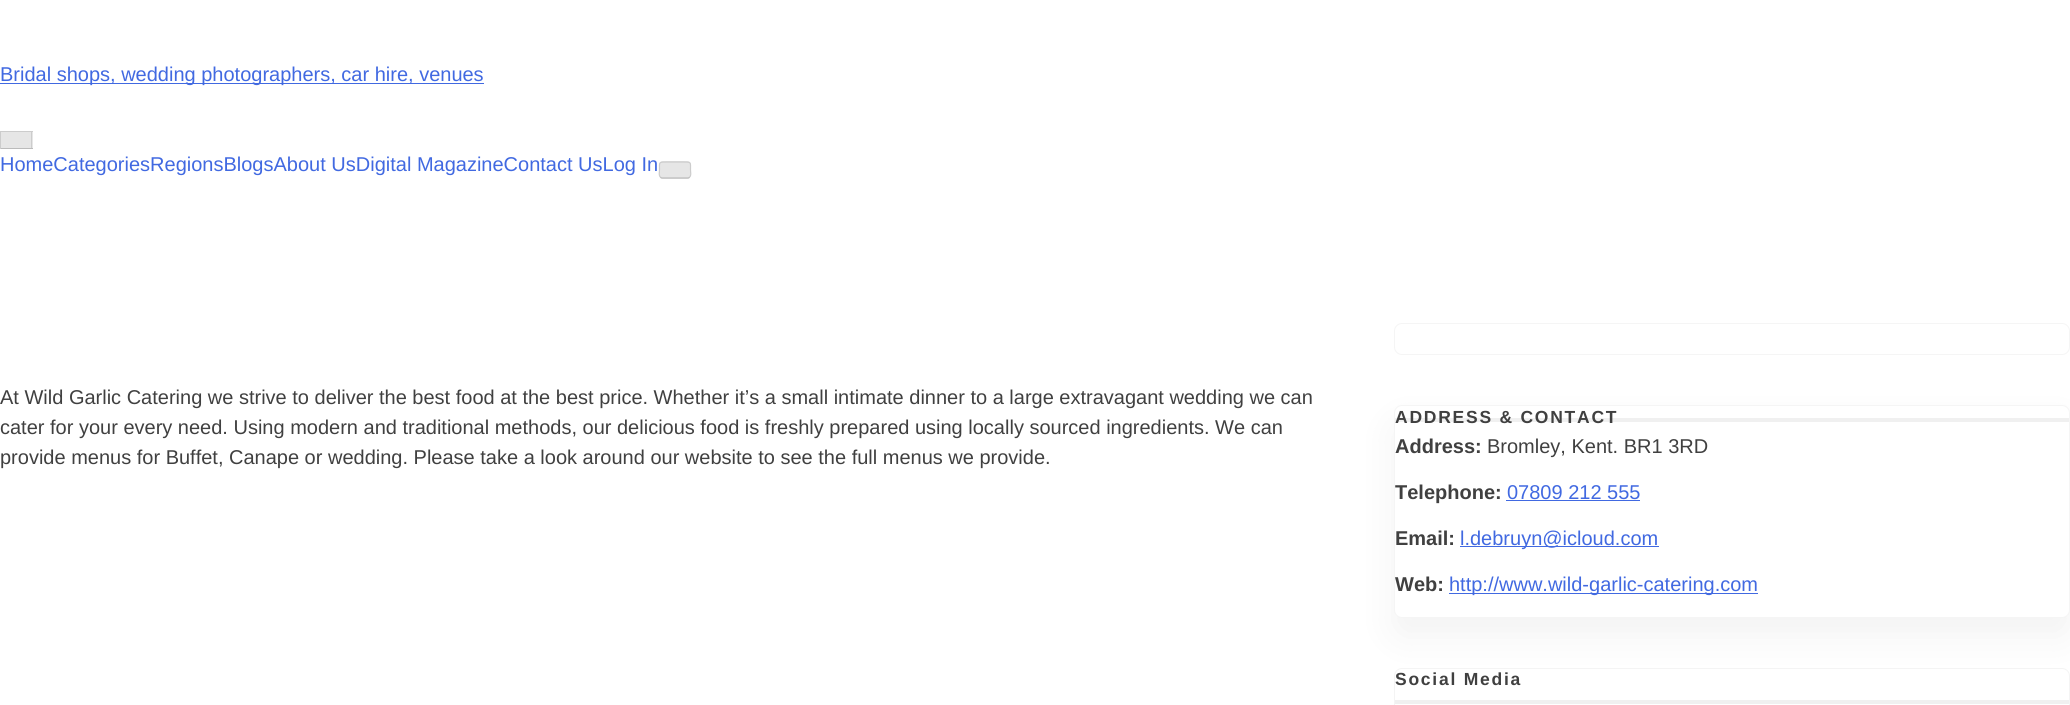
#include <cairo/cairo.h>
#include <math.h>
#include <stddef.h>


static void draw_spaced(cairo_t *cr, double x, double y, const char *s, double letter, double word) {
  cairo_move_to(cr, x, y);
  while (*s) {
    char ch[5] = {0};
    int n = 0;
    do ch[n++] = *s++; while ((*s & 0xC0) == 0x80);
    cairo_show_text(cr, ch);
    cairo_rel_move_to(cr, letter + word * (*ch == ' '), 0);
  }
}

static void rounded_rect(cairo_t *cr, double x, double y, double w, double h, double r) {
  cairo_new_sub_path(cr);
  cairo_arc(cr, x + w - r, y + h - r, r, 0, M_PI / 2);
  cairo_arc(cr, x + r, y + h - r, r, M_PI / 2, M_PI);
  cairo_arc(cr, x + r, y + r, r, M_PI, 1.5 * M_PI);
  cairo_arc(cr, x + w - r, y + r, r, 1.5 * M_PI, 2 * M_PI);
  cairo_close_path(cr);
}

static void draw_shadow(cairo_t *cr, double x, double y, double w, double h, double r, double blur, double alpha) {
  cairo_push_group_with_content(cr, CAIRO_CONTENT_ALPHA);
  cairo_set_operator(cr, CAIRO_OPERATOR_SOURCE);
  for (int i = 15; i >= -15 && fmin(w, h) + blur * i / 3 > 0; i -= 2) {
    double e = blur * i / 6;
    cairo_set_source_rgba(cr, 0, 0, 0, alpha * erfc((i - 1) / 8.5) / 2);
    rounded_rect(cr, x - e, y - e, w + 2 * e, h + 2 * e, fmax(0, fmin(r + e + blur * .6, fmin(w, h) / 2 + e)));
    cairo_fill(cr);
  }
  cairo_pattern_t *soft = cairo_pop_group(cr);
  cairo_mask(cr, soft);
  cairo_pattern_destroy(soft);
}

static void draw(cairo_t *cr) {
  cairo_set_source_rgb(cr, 1, 1, 1);
  cairo_paint(cr);
  cairo_set_source_rgb(cr, 65 / 255.0, 105 / 255.0, 225 / 255.0);
  cairo_rectangle(cr, 0, 83, 484, 1);
  cairo_fill(cr);
  cairo_set_source_rgb(cr, 230 / 255.0, 230 / 255.0, 230 / 255.0);
  cairo_rectangle(cr, 1, 132, 32, 16);
  cairo_fill(cr);
  cairo_set_source_rgb(cr, 204 / 255.0, 204 / 255.0, 204 / 255.0);
  cairo_rectangle(cr, 0, 131, 33, 1);
  cairo_fill(cr);
  cairo_rectangle(cr, 31, 131, 1, 18);
  cairo_fill(cr);
  cairo_set_source_rgb(cr, 187 / 255.0, 187 / 255.0, 187 / 255.0);
  cairo_rectangle(cr, 0, 148, 33, 1);
  cairo_fill(cr);
  cairo_set_source_rgb(cr, 204 / 255.0, 204 / 255.0, 204 / 255.0);
  cairo_rectangle(cr, 0, 131, 1, 18);
  cairo_fill(cr);
  cairo_set_source_rgb(cr, 230 / 255.0, 230 / 255.0, 230 / 255.0);
  rounded_rect(cr, 659, 161, 32, 18, 4);
  cairo_fill(cr);
  cairo_new_path(cr);
  cairo_move_to(cr, 689.5, 177);
  cairo_curve_to(cr, 689, 178, 688.5, 178, 687.5, 178);
  cairo_line_to(cr, 662.5, 178);
  cairo_curve_to(cr, 661.5, 178, 661, 178, 660.5, 177);
  cairo_set_source_rgb(cr, 187 / 255.0, 187 / 255.0, 187 / 255.0);
  cairo_set_line_width(cr, 1.2);
  cairo_stroke(cr);
  cairo_new_path(cr);
  cairo_move_to(cr, 660.5, 177);
  cairo_curve_to(cr, 658.5, 175.5, 659.5, 172, 659.5, 170);
  cairo_curve_to(cr, 659.5, 162, 658.5, 162, 666.5, 162);
  cairo_line_to(cr, 683.5, 162);
  cairo_curve_to(cr, 691.5, 162, 690.5, 162, 690.5, 170);
  cairo_curve_to(cr, 690.5, 172, 691.5, 175.5, 689.5, 177);
  cairo_set_source_rgb(cr, 204 / 255.0, 204 / 255.0, 204 / 255.0);
  cairo_stroke(cr);
  rounded_rect(cr, 1394.5, 323.5, 675, 31, 7.5);
  cairo_set_source_rgb(cr, 245 / 255.0, 245 / 255.0, 245 / 255.0);
  cairo_set_line_width(cr, 1);
  cairo_stroke(cr);
  cairo_set_source_rgb(cr, 0, 0, 0);
  draw_shadow(cr, 1394, 424, 676, 212, 8, 19, 0.05);
  cairo_set_source_rgb(cr, 1, 1, 1);
  rounded_rect(cr, 1394.5, 405.5, 675, 212, 7.5);
  cairo_fill_preserve(cr);
  cairo_set_source_rgb(cr, 245 / 255.0, 245 / 255.0, 245 / 255.0);
  cairo_stroke(cr);
  cairo_set_source_rgb(cr, 240 / 255.0, 240 / 255.0, 240 / 255.0);
  cairo_rectangle(cr, 1395, 418, 674, 4);
  cairo_fill(cr);
  cairo_set_source_rgb(cr, 65 / 255.0, 105 / 255.0, 225 / 255.0);
  cairo_rectangle(cr, 1506, 500, 134, 1);
  cairo_fill(cr);
  cairo_rectangle(cr, 1460, 546, 199, 1);
  cairo_fill(cr);
  cairo_rectangle(cr, 1449, 593, 309, 1);
  cairo_fill(cr);
  rounded_rect(cr, 1394.5, 668.5, 675, 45, 7.5);
  cairo_set_source_rgb(cr, 244 / 255.0, 244 / 255.0, 244 / 255.0);
  cairo_stroke(cr);
  cairo_set_source_rgb(cr, 240 / 255.0, 240 / 255.0, 240 / 255.0);
  cairo_rectangle(cr, 1395, 700, 674, 4);
  cairo_fill(cr);
  cairo_select_font_face(cr, "Liberation Sans", CAIRO_FONT_SLANT_NORMAL, CAIRO_FONT_WEIGHT_NORMAL);
  cairo_set_font_size(cr, 20);
  cairo_set_source_rgb(cr, 65 / 255.0, 105 / 255.0, 225 / 255.0);
  cairo_move_to(cr, 0, 81);
  cairo_show_text(cr, "Bridal shops, wedding photographers, car hire, venues");
  cairo_move_to(cr, 0, 171);
  cairo_show_text(cr, "HomeCategoriesRegionsBlogsAbout UsDigital MagazineContact UsLog In");
  cairo_set_source_rgb(cr, 64 / 255.0, 64 / 255.0, 64 / 255.0);
  cairo_move_to(cr, 0, 404);
  cairo_show_text(cr, "At Wild Garlic Catering we strive to deliver the best food at the best price. Whether it’s a small intimate dinner to a large extravagant wedding we can");
  cairo_move_to(cr, 0, 434);
  cairo_show_text(cr, "cater for your every need. Using modern and traditional methods, our delicious food is freshly prepared using locally sourced ingredients. We can");
  cairo_move_to(cr, 0, 464);
  cairo_show_text(cr, "provide menus for Buffet, Canape or wedding. Please take a look around our website to see the full menus we provide.");
  cairo_select_font_face(cr, "Liberation Sans", CAIRO_FONT_SLANT_NORMAL, CAIRO_FONT_WEIGHT_BOLD);
  cairo_set_font_size(cr, 17.5);
  draw_spaced(cr, 1395, 423, "ADDRESS & CONTACT", 1.75, 0);
  cairo_set_font_size(cr, 20);
  cairo_move_to(cr, 1395, 453);
  cairo_show_text(cr, "Address:");
  cairo_select_font_face(cr, "Liberation Sans", CAIRO_FONT_SLANT_NORMAL, CAIRO_FONT_WEIGHT_NORMAL);
  cairo_move_to(cr, 1487, 453);
  cairo_show_text(cr, "Bromley, Kent. BR1 3RD");
  cairo_select_font_face(cr, "Liberation Sans", CAIRO_FONT_SLANT_NORMAL, CAIRO_FONT_WEIGHT_BOLD);
  cairo_move_to(cr, 1395, 499);
  cairo_show_text(cr, "Telephone:");
  cairo_select_font_face(cr, "Liberation Sans", CAIRO_FONT_SLANT_NORMAL, CAIRO_FONT_WEIGHT_NORMAL);
  cairo_set_source_rgb(cr, 65 / 255.0, 105 / 255.0, 225 / 255.0);
  cairo_move_to(cr, 1507, 499);
  cairo_show_text(cr, "07809 212 555");
  cairo_select_font_face(cr, "Liberation Sans", CAIRO_FONT_SLANT_NORMAL, CAIRO_FONT_WEIGHT_BOLD);
  cairo_set_source_rgb(cr, 64 / 255.0, 64 / 255.0, 64 / 255.0);
  cairo_move_to(cr, 1395, 545);
  cairo_show_text(cr, "Email:");
  cairo_select_font_face(cr, "Liberation Sans", CAIRO_FONT_SLANT_NORMAL, CAIRO_FONT_WEIGHT_NORMAL);
  cairo_set_source_rgb(cr, 65 / 255.0, 105 / 255.0, 225 / 255.0);
  cairo_move_to(cr, 1460, 545);
  cairo_show_text(cr, "l.debruyn@icloud.com");
  cairo_select_font_face(cr, "Liberation Sans", CAIRO_FONT_SLANT_NORMAL, CAIRO_FONT_WEIGHT_BOLD);
  cairo_set_source_rgb(cr, 64 / 255.0, 64 / 255.0, 64 / 255.0);
  cairo_move_to(cr, 1395, 591);
  cairo_show_text(cr, "Web:");
  cairo_select_font_face(cr, "Liberation Sans", CAIRO_FONT_SLANT_NORMAL, CAIRO_FONT_WEIGHT_NORMAL);
  cairo_set_source_rgb(cr, 65 / 255.0, 105 / 255.0, 225 / 255.0);
  cairo_move_to(cr, 1449, 591);
  cairo_show_text(cr, "http://www.wild-garlic-catering.com");
  cairo_select_font_face(cr, "Liberation Sans", CAIRO_FONT_SLANT_NORMAL, CAIRO_FONT_WEIGHT_BOLD);
  cairo_set_font_size(cr, 17.5);
  cairo_set_source_rgb(cr, 64 / 255.0, 64 / 255.0, 64 / 255.0);
  draw_spaced(cr, 1395, 685, "Social Media", 1.75, 0);
}

int main(void) {
  cairo_surface_t *surface = cairo_image_surface_create(CAIRO_FORMAT_RGB24, 2070, 705);
  cairo_t *cr = cairo_create(surface);
  cairo_font_options_t *options = cairo_font_options_create();
  cairo_font_options_set_hint_metrics(options, CAIRO_HINT_METRICS_OFF);
  cairo_font_options_set_hint_style(options, CAIRO_HINT_STYLE_NONE);
  cairo_set_font_options(cr, options);
  cairo_set_miter_limit(cr, 4);
  draw(cr);
  cairo_surface_write_to_png(surface, "out.png");
  cairo_font_options_destroy(options);
  cairo_destroy(cr);
  cairo_surface_destroy(surface);
  return 0;
}
